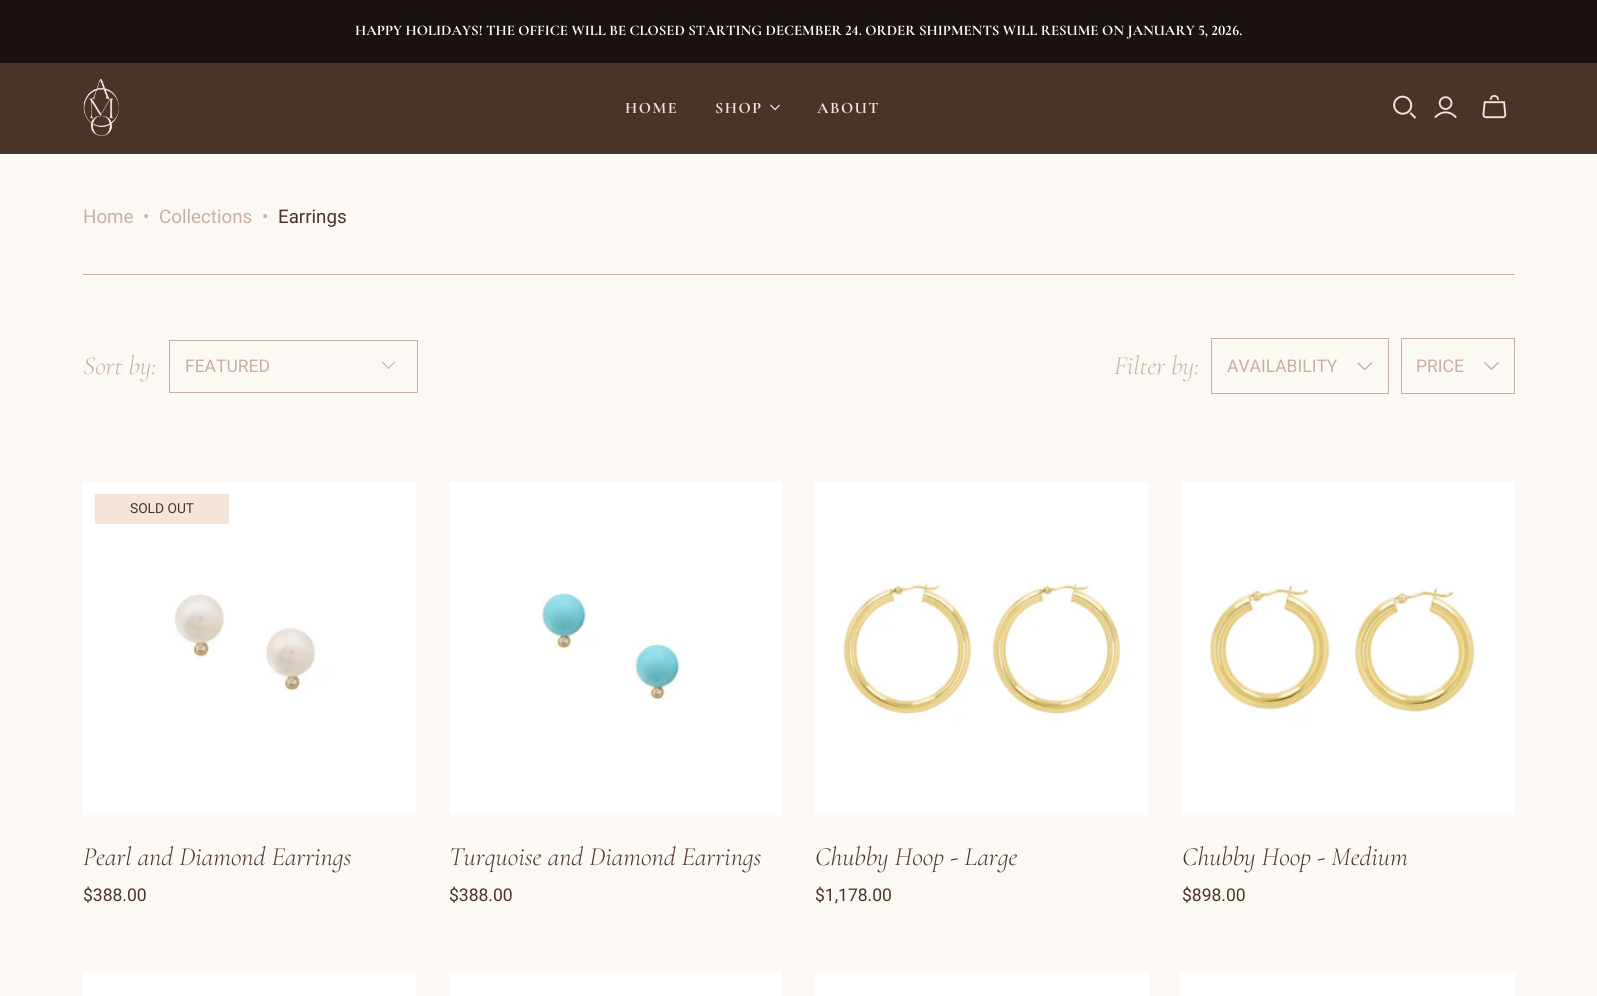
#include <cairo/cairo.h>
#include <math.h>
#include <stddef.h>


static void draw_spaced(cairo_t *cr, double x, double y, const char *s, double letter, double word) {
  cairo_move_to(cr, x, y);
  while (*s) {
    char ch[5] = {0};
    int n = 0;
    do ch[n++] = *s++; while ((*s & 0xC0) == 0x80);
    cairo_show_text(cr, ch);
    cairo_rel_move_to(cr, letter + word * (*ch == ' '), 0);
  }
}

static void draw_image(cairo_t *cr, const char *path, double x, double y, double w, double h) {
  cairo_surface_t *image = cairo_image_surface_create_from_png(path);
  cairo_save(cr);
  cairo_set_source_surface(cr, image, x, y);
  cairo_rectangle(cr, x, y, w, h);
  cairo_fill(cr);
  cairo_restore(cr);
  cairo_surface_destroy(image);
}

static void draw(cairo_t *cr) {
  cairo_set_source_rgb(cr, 252 / 255.0, 249 / 255.0, 245 / 255.0);
  cairo_paint(cr);
  cairo_set_source_rgb(cr, 26 / 255.0, 18 / 255.0, 15 / 255.0);
  cairo_rectangle(cr, 0, 0, 1597, 63);
  cairo_fill(cr);
  cairo_set_source_rgb(cr, 74 / 255.0, 51 / 255.0, 41 / 255.0);
  cairo_rectangle(cr, 0, 63, 1597, 91);
  cairo_fill(cr);
  draw_image(cr, "images/1.png", 83, 79, 37, 58);
  draw_image(cr, "images/2.png", 770, 104, 10, 7);
  draw_image(cr, "images/3.png", 1393, 95, 24, 24);
  draw_image(cr, "images/4.png", 1434, 96, 23, 23);
  draw_image(cr, "images/5.png", 1482, 95, 25, 24);
  cairo_set_source_rgb(cr, 200 / 255.0, 175 / 255.0, 161 / 255.0);
  cairo_rectangle(cr, 83, 274, 1432, 1);
  cairo_fill(cr);
  cairo_rectangle(cr, 169.5, 340.5, 248, 52);
  cairo_set_line_width(cr, 1);
  cairo_stroke(cr);
  cairo_new_path(cr);
  cairo_move_to(cr, 387.5, 368.5);
  cairo_line_to(cr, 394.5, 361.5);
  cairo_line_to(cr, 395.5, 362);
  cairo_line_to(cr, 388.5, 369);
  cairo_close_path(cr);
  cairo_fill(cr);
  cairo_new_path(cr);
  cairo_move_to(cr, 381.5, 362);
  cairo_line_to(cr, 382.5, 361.5);
  cairo_line_to(cr, 389.5, 368.5);
  cairo_line_to(cr, 388.5, 369);
  cairo_close_path(cr);
  cairo_fill(cr);
  cairo_rectangle(cr, 1211.5, 338.5, 177, 55);
  cairo_stroke(cr);
  draw_image(cr, "images/6.png", 1357, 362, 16, 9);
  cairo_rectangle(cr, 1401.5, 338.5, 113, 55);
  cairo_stroke(cr);
  draw_image(cr, "images/7.png", 1484, 362, 15, 8);
  draw_image(cr, "images/8.png", 83, 481, 333, 334);
  cairo_set_source_rgb(cr, 245 / 255.0, 229 / 255.0, 215 / 255.0);
  cairo_rectangle(cr, 95, 494, 134, 30);
  cairo_fill(cr);
  draw_image(cr, "images/9.png", 449, 481, 333, 334);
  draw_image(cr, "images/10.png", 815, 481, 334, 334);
  draw_image(cr, "images/11.png", 1181, 481, 334, 334);
  cairo_set_source_rgb(cr, 1, 1, 1);
  cairo_rectangle(cr, 83, 971, 333, 25);
  cairo_fill(cr);
  cairo_rectangle(cr, 449, 971, 333, 25);
  cairo_fill(cr);
  cairo_rectangle(cr, 815, 971, 334, 25);
  cairo_fill(cr);
  cairo_rectangle(cr, 1181, 971, 334, 25);
  cairo_fill(cr);
  cairo_select_font_face(cr, "Cormorant Infant Light", CAIRO_FONT_SLANT_NORMAL, CAIRO_FONT_WEIGHT_NORMAL);
  cairo_set_font_size(cr, 14.7);
  cairo_move_to(cr, 355, 35);
  cairo_show_text(cr, "HAPPY HOLIDAYS! THE OFFICE WILL BE CLOSED STARTING DECEMBER 24. ORDER SHIPMENTS WILL RESUME ON JANUARY 5, 2026.");
  cairo_set_font_size(cr, 16);
  cairo_set_source_rgb(cr, 242 / 255.0, 229 / 255.0, 217 / 255.0);
  draw_spaced(cr, 625, 113, "HOME", 1.5, 0);
  draw_spaced(cr, 715, 113, "SHOP", 1.5, 0);
  draw_spaced(cr, 817, 113, "ABOUT", 1.5, 0);
  cairo_select_font_face(cr, "Roboto", CAIRO_FONT_SLANT_NORMAL, CAIRO_FONT_WEIGHT_NORMAL);
  cairo_set_font_size(cr, 18.75);
  cairo_set_source_rgb(cr, 200 / 255.0, 175 / 255.0, 161 / 255.0);
  cairo_move_to(cr, 83, 223);
  cairo_show_text(cr, "Home");
  cairo_move_to(cr, 143, 223);
  cairo_show_text(cr, "•");
  cairo_move_to(cr, 159, 223);
  cairo_show_text(cr, "Collections");
  cairo_move_to(cr, 262, 223);
  cairo_show_text(cr, "•");
  cairo_set_source_rgb(cr, 74 / 255.0, 51 / 255.0, 41 / 255.0);
  cairo_move_to(cr, 278, 223);
  cairo_show_text(cr, "Earrings");
  cairo_select_font_face(cr, "Cormorant Infant Light", CAIRO_FONT_SLANT_ITALIC, CAIRO_FONT_WEIGHT_NORMAL);
  cairo_set_font_size(cr, 26.4);
  cairo_set_source_rgb(cr, 200 / 255.0, 175 / 255.0, 161 / 255.0);
  cairo_move_to(cr, 83, 374);
  cairo_show_text(cr, "Sort by:");
  cairo_select_font_face(cr, "Roboto", CAIRO_FONT_SLANT_NORMAL, CAIRO_FONT_WEIGHT_NORMAL);
  cairo_set_font_size(cr, 17.5);
  cairo_move_to(cr, 185, 372);
  cairo_show_text(cr, "FEATURED");
  cairo_select_font_face(cr, "Cormorant Infant Light", CAIRO_FONT_SLANT_ITALIC, CAIRO_FONT_WEIGHT_NORMAL);
  cairo_set_font_size(cr, 26.4);
  cairo_move_to(cr, 1114, 374);
  cairo_show_text(cr, "Filter by:");
  cairo_select_font_face(cr, "Roboto", CAIRO_FONT_SLANT_NORMAL, CAIRO_FONT_WEIGHT_NORMAL);
  cairo_set_font_size(cr, 17.5);
  cairo_move_to(cr, 1227, 372);
  cairo_show_text(cr, "AVAILABILITY");
  cairo_move_to(cr, 1416, 372);
  cairo_show_text(cr, "PRICE");
  cairo_set_font_size(cr, 13.75);
  cairo_set_source_rgb(cr, 74 / 255.0, 51 / 255.0, 41 / 255.0);
  cairo_move_to(cr, 130, 513);
  cairo_show_text(cr, "SOLD OUT");
  cairo_select_font_face(cr, "Cormorant Infant Light", CAIRO_FONT_SLANT_ITALIC, CAIRO_FONT_WEIGHT_NORMAL);
  cairo_set_font_size(cr, 26.4);
  cairo_move_to(cr, 83, 865);
  cairo_show_text(cr, "Pearl and Diamond Earrings");
  cairo_select_font_face(cr, "Roboto", CAIRO_FONT_SLANT_NORMAL, CAIRO_FONT_WEIGHT_NORMAL);
  cairo_set_font_size(cr, 17.5);
  cairo_move_to(cr, 83, 901);
  cairo_show_text(cr, "$388.00");
  cairo_select_font_face(cr, "Cormorant Infant Light", CAIRO_FONT_SLANT_ITALIC, CAIRO_FONT_WEIGHT_NORMAL);
  cairo_set_font_size(cr, 26.4);
  cairo_move_to(cr, 449, 865);
  cairo_show_text(cr, "Turquoise and Diamond Earrings");
  cairo_select_font_face(cr, "Roboto", CAIRO_FONT_SLANT_NORMAL, CAIRO_FONT_WEIGHT_NORMAL);
  cairo_set_font_size(cr, 17.5);
  cairo_move_to(cr, 449, 901);
  cairo_show_text(cr, "$388.00");
  cairo_select_font_face(cr, "Cormorant Infant Light", CAIRO_FONT_SLANT_ITALIC, CAIRO_FONT_WEIGHT_NORMAL);
  cairo_set_font_size(cr, 26.4);
  cairo_move_to(cr, 815, 865);
  cairo_show_text(cr, "Chubby Hoop - Large");
  cairo_select_font_face(cr, "Roboto", CAIRO_FONT_SLANT_NORMAL, CAIRO_FONT_WEIGHT_NORMAL);
  cairo_set_font_size(cr, 17.5);
  cairo_move_to(cr, 815, 901);
  cairo_show_text(cr, "$1,178.00");
  cairo_select_font_face(cr, "Cormorant Infant Light", CAIRO_FONT_SLANT_ITALIC, CAIRO_FONT_WEIGHT_NORMAL);
  cairo_set_font_size(cr, 26.4);
  cairo_move_to(cr, 1182, 865);
  cairo_show_text(cr, "Chubby Hoop - Medium");
  cairo_select_font_face(cr, "Roboto", CAIRO_FONT_SLANT_NORMAL, CAIRO_FONT_WEIGHT_NORMAL);
  cairo_set_font_size(cr, 17.5);
  cairo_move_to(cr, 1182, 901);
  cairo_show_text(cr, "$898.00");
}

int main(void) {
  cairo_surface_t *surface = cairo_image_surface_create(CAIRO_FORMAT_RGB24, 1597, 996);
  cairo_t *cr = cairo_create(surface);
  cairo_font_options_t *options = cairo_font_options_create();
  cairo_font_options_set_hint_metrics(options, CAIRO_HINT_METRICS_OFF);
  cairo_font_options_set_hint_style(options, CAIRO_HINT_STYLE_NONE);
  cairo_set_font_options(cr, options);
  cairo_set_miter_limit(cr, 4);
  draw(cr);
  cairo_surface_write_to_png(surface, "out.png");
  cairo_font_options_destroy(options);
  cairo_destroy(cr);
  cairo_surface_destroy(surface);
  return 0;
}
